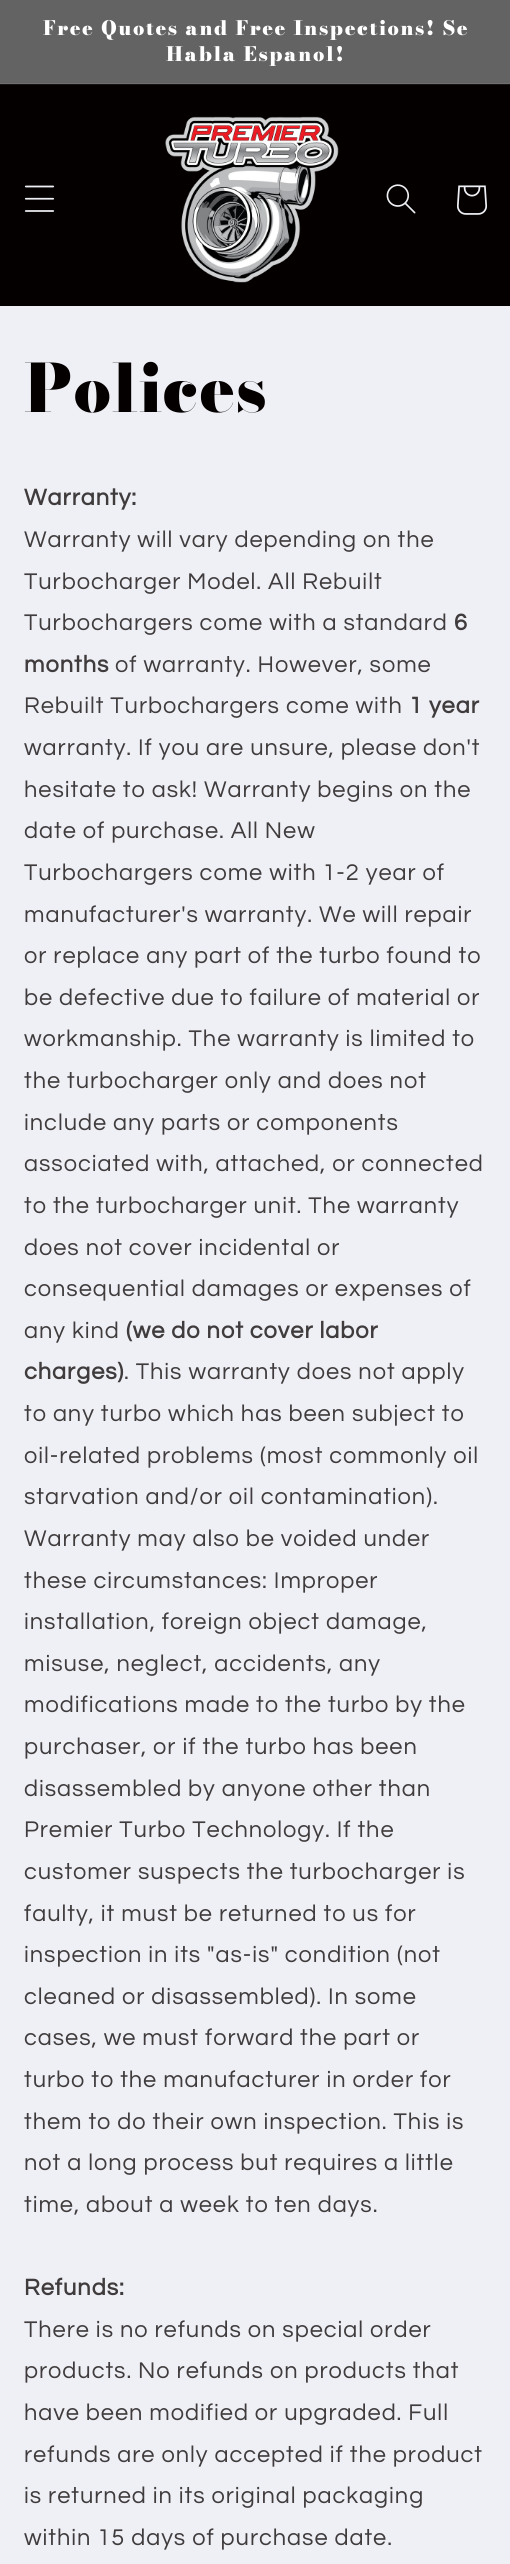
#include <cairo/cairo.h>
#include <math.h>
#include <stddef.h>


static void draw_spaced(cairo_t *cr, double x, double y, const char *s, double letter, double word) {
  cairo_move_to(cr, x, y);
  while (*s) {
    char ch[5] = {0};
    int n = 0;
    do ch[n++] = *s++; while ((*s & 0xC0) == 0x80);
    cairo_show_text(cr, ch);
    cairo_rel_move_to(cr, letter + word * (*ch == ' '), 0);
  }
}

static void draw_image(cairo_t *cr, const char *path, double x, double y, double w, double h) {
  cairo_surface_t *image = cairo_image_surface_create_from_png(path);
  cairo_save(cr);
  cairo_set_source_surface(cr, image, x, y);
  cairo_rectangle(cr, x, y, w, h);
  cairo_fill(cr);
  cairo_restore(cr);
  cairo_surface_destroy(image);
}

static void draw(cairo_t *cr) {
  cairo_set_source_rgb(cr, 239 / 255.0, 240 / 255.0, 245 / 255.0);
  cairo_paint(cr);
  cairo_set_source_rgb(cr, 99 / 255.0, 99 / 255.0, 99 / 255.0);
  cairo_rectangle(cr, 0, 0, 510, 83);
  cairo_fill(cr);
  cairo_set_source_rgb(cr, 111 / 255.0, 111 / 255.0, 111 / 255.0);
  cairo_rectangle(cr, 0, 83, 510, 1);
  cairo_fill(cr);
  cairo_set_source_rgb(cr, 5 / 255.0, 0, 0);
  cairo_rectangle(cr, 0, 85, 510, 221);
  cairo_fill(cr);
  cairo_set_source_rgb(cr, 25 / 255.0, 20 / 255.0, 20 / 255.0);
  cairo_rectangle(cr, 0, 84, 510, 1);
  cairo_fill(cr);
  draw_image(cr, "images/1.png", 24, 185, 31, 27);
  draw_image(cr, "images/2.png", 165, 116, 174, 167);
  draw_image(cr, "images/3.png", 386, 184, 30, 30);
  draw_image(cr, "images/4.png", 457, 185, 31, 30);
  cairo_select_font_face(cr, "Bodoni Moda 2 Black", CAIRO_FONT_SLANT_NORMAL, CAIRO_FONT_WEIGHT_NORMAL);
  cairo_set_font_size(cr, 19.8);
  cairo_set_source_rgb(cr, 1, 1, 1);
  draw_spaced(cr, 43, 35, "Free Quotes and Free Inspections! Se", 1.6, 0);
  draw_spaced(cr, 166, 61, "Habla Espanol!", 1.6, 0);
  cairo_select_font_face(cr, "Bodoni Moda Black", CAIRO_FONT_SLANT_NORMAL, CAIRO_FONT_WEIGHT_NORMAL);
  cairo_set_font_size(cr, 66);
  cairo_set_source_rgb(cr, 5 / 255.0, 0, 0);
  draw_spaced(cr, 24, 412, "Polices", 1, 0);
  cairo_select_font_face(cr, "Questrial", CAIRO_FONT_SLANT_NORMAL, CAIRO_FONT_WEIGHT_BOLD);
  cairo_set_font_size(cr, 23.6);
  cairo_set_source_rgb(cr, 64 / 255.0, 60 / 255.0, 61 / 255.0);
  draw_spaced(cr, 24, 505, "Warranty:", 0.95, 0);
  cairo_select_font_face(cr, "Questrial", CAIRO_FONT_SLANT_NORMAL, CAIRO_FONT_WEIGHT_NORMAL);
  draw_spaced(cr, 24, 547, "Warranty will vary depending on the", 0.95, 0);
  draw_spaced(cr, 24, 589, "Turbocharger Model. All Rebuilt", 0.95, 0);
  draw_spaced(cr, 24, 630, "Turbochargers come with a standard", 0.95, 0);
  cairo_select_font_face(cr, "Questrial", CAIRO_FONT_SLANT_NORMAL, CAIRO_FONT_WEIGHT_BOLD);
  draw_spaced(cr, 454, 630, "6", 0.95, 0);
  draw_spaced(cr, 24, 672, "months", 0.95, 0);
  cairo_select_font_face(cr, "Questrial", CAIRO_FONT_SLANT_NORMAL, CAIRO_FONT_WEIGHT_NORMAL);
  draw_spaced(cr, 115, 672, "of warranty. However, some", 0.95, 0);
  draw_spaced(cr, 24, 713, "Rebuilt Turbochargers come with", 0.95, 0);
  cairo_select_font_face(cr, "Questrial", CAIRO_FONT_SLANT_NORMAL, CAIRO_FONT_WEIGHT_BOLD);
  draw_spaced(cr, 409, 713, "1 year", 0.95, 0);
  cairo_select_font_face(cr, "Questrial", CAIRO_FONT_SLANT_NORMAL, CAIRO_FONT_WEIGHT_NORMAL);
  draw_spaced(cr, 24, 755, "warranty. If you are unsure, please don't", 0.95, 0);
  draw_spaced(cr, 24, 797, "hesitate to ask! Warranty begins on the", 0.95, 0);
  draw_spaced(cr, 24, 838, "date of purchase. All New", 0.95, 0);
  draw_spaced(cr, 24, 880, "Turbochargers come with 1-2 year of", 0.95, 0);
  draw_spaced(cr, 24, 922, "manufacturer's warranty. We will repair", 0.95, 0);
  draw_spaced(cr, 24, 963, "or replace any part of the turbo found to", 0.95, 0);
  draw_spaced(cr, 24, 1005, "be defective due to failure of material or", 0.95, 0);
  draw_spaced(cr, 24, 1046, "workmanship. The warranty is limited to", 0.95, 0);
  draw_spaced(cr, 24, 1088, "the turbocharger only and does not", 0.95, 0);
  draw_spaced(cr, 24, 1130, "include any parts or components", 0.95, 0);
  draw_spaced(cr, 24, 1171, "associated with, attached, or connected", 0.95, 0);
  draw_spaced(cr, 24, 1213, "to the turbocharger unit. The warranty", 0.95, 0);
  draw_spaced(cr, 24, 1255, "does not cover incidental or", 0.95, 0);
  draw_spaced(cr, 24, 1296, "consequential damages or expenses of", 0.95, 0);
  draw_spaced(cr, 24, 1338, "any kind", 0.95, 0);
  cairo_select_font_face(cr, "Questrial", CAIRO_FONT_SLANT_NORMAL, CAIRO_FONT_WEIGHT_BOLD);
  draw_spaced(cr, 126, 1338, "(we do not cover labor", 0.95, 0);
  draw_spaced(cr, 24, 1379, "charges)", 0.95, 0);
  cairo_select_font_face(cr, "Questrial", CAIRO_FONT_SLANT_NORMAL, CAIRO_FONT_WEIGHT_NORMAL);
  draw_spaced(cr, 124, 1379, ". This warranty does not apply", 0.95, 0);
  draw_spaced(cr, 24, 1421, "to any turbo which has been subject to", 0.95, 0);
  draw_spaced(cr, 24, 1463, "oil-related problems (most commonly oil", 0.95, 0);
  draw_spaced(cr, 24, 1504, "starvation and/or oil contamination).", 0.95, 0);
  draw_spaced(cr, 24, 1546, "Warranty may also be voided under", 0.95, 0);
  draw_spaced(cr, 24, 1588, "these circumstances: Improper", 0.95, 0);
  draw_spaced(cr, 24, 1629, "installation, foreign object damage,", 0.95, 0);
  draw_spaced(cr, 24, 1671, "misuse, neglect, accidents, any", 0.95, 0);
  draw_spaced(cr, 24, 1712, "modifications made to the turbo by the", 0.95, 0);
  draw_spaced(cr, 24, 1754, "purchaser, or if the turbo has been", 0.95, 0);
  draw_spaced(cr, 24, 1796, "disassembled by anyone other than", 0.95, 0);
  draw_spaced(cr, 24, 1837, "Premier Turbo Technology. If the", 0.95, 0);
  draw_spaced(cr, 24, 1879, "customer suspects the turbocharger is", 0.95, 0);
  draw_spaced(cr, 24, 1921, "faulty, it must be returned to us for", 0.95, 0);
  draw_spaced(cr, 24, 1962, "inspection in its \"as-is\" condition (not", 0.95, 0);
  draw_spaced(cr, 24, 2004, "cleaned or disassembled). In some", 0.95, 0);
  draw_spaced(cr, 24, 2045, "cases, we must forward the part or", 0.95, 0);
  draw_spaced(cr, 24, 2087, "turbo to the manufacturer in order for", 0.95, 0);
  draw_spaced(cr, 24, 2129, "them to do their own inspection. This is", 0.95, 0);
  draw_spaced(cr, 24, 2170, "not a long process but requires a little", 0.95, 0);
  draw_spaced(cr, 24, 2212, "time, about a week to ten days.", 0.95, 0);
  cairo_select_font_face(cr, "Questrial", CAIRO_FONT_SLANT_NORMAL, CAIRO_FONT_WEIGHT_BOLD);
  draw_spaced(cr, 24, 2295, "Refunds:", 0.95, 0);
  cairo_select_font_face(cr, "Questrial", CAIRO_FONT_SLANT_NORMAL, CAIRO_FONT_WEIGHT_NORMAL);
  draw_spaced(cr, 24, 2337, "There is no refunds on special order", 0.95, 0);
  draw_spaced(cr, 24, 2378, "products. No refunds on products that", 0.95, 0);
  draw_spaced(cr, 24, 2420, "have been modified or upgraded. Full", 0.95, 0);
  draw_spaced(cr, 24, 2462, "refunds are only accepted if the product", 0.95, 0);
  draw_spaced(cr, 24, 2503, "is returned in its original packaging", 0.95, 0);
  draw_spaced(cr, 24, 2545, "within 15 days of purchase date.", 0.95, 0);
}

int main(void) {
  cairo_surface_t *surface = cairo_image_surface_create(CAIRO_FORMAT_RGB24, 510, 2564);
  cairo_t *cr = cairo_create(surface);
  cairo_font_options_t *options = cairo_font_options_create();
  cairo_font_options_set_hint_metrics(options, CAIRO_HINT_METRICS_OFF);
  cairo_font_options_set_hint_style(options, CAIRO_HINT_STYLE_NONE);
  cairo_set_font_options(cr, options);
  cairo_set_miter_limit(cr, 4);
  draw(cr);
  cairo_surface_write_to_png(surface, "out.png");
  cairo_font_options_destroy(options);
  cairo_destroy(cr);
  cairo_surface_destroy(surface);
  return 0;
}
